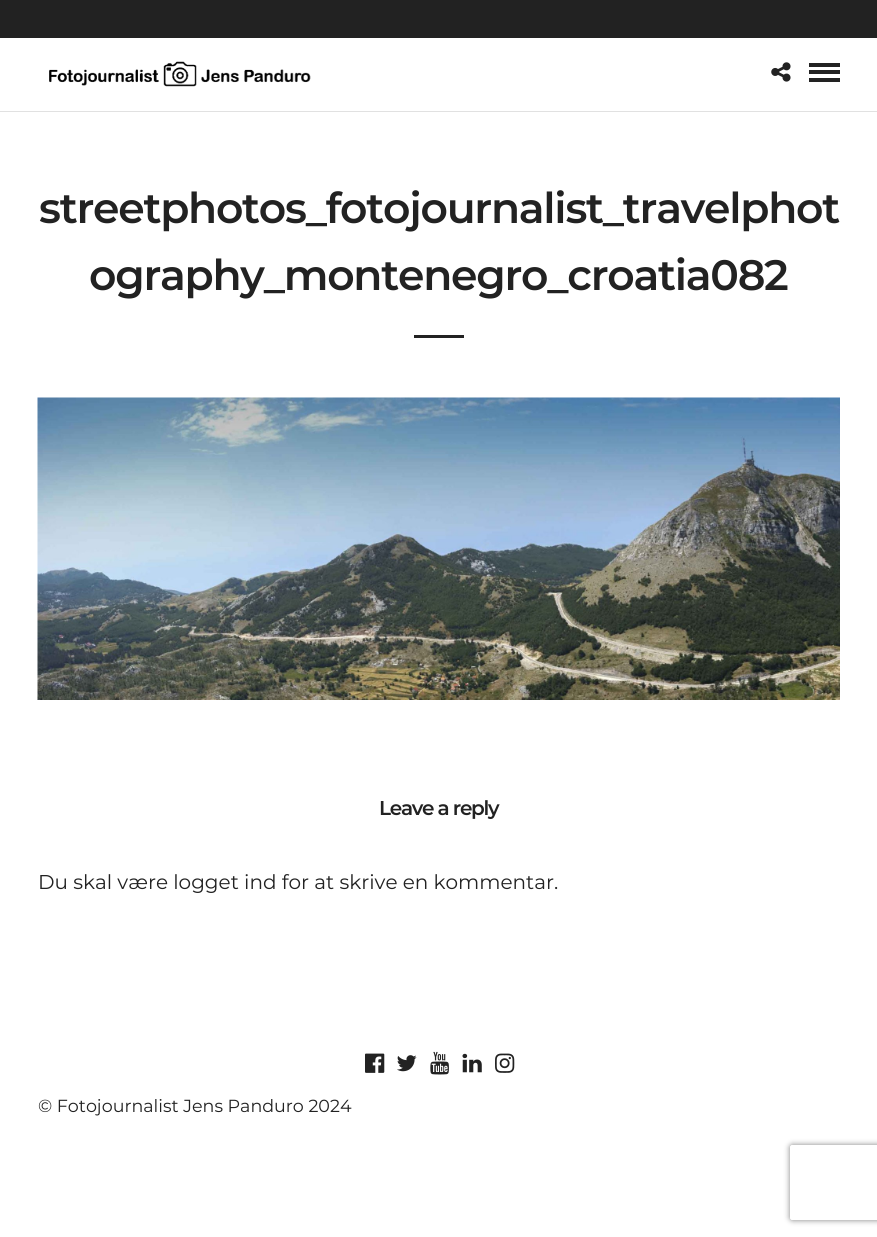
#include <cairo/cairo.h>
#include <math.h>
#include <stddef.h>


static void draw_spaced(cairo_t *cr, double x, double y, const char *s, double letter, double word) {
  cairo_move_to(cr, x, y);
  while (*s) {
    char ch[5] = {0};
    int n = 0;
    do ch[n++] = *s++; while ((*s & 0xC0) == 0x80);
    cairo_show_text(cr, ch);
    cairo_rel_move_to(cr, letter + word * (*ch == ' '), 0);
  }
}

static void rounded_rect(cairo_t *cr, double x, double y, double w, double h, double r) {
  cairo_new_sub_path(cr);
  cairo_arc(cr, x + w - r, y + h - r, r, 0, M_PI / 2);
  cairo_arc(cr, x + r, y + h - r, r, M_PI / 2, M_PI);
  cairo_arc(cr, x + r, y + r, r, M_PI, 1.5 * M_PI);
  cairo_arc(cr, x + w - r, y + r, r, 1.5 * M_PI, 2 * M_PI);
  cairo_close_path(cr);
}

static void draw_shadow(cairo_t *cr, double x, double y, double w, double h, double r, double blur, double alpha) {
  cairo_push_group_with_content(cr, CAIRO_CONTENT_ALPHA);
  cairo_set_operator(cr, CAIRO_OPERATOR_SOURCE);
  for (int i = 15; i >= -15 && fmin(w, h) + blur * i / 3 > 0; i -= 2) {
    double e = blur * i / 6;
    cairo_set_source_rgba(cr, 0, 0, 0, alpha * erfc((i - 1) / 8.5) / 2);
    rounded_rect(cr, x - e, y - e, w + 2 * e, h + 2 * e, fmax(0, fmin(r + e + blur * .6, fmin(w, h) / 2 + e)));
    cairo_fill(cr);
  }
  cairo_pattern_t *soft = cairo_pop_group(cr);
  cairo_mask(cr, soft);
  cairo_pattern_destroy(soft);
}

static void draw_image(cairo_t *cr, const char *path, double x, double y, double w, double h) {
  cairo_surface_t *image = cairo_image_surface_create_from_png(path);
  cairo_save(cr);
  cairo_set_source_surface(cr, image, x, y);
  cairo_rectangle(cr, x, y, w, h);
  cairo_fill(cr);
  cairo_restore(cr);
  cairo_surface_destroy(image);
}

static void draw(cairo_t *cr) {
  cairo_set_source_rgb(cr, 1, 1, 1);
  cairo_paint(cr);
  cairo_set_source_rgb(cr, 34 / 255.0, 34 / 255.0, 34 / 255.0);
  cairo_rectangle(cr, 0, 0, 877, 38);
  cairo_fill(cr);
  cairo_set_source_rgb(cr, 225 / 255.0, 225 / 255.0, 225 / 255.0);
  cairo_rectangle(cr, 0, 111, 877, 1);
  cairo_fill(cr);
  draw_image(cr, "images/1.png", 49, 61, 262, 26);
  draw_image(cr, "images/2.png", 771, 62, 20, 20);
  cairo_set_source_rgb(cr, 34 / 255.0, 34 / 255.0, 34 / 255.0);
  cairo_rectangle(cr, 809, 63, 31, 4);
  cairo_fill(cr);
  cairo_rectangle(cr, 809, 70, 31, 4);
  cairo_fill(cr);
  cairo_rectangle(cr, 809, 78, 31, 4);
  cairo_fill(cr);
  cairo_rectangle(cr, 414, 335, 50, 3);
  cairo_fill(cr);
  draw_image(cr, "images/3.png", 37, 397, 803, 303);
  draw_image(cr, "images/4.png", 365, 1053, 20, 20);
  draw_image(cr, "images/5.png", 397, 1055, 20, 17);
  draw_image(cr, "images/6.png", 430, 1051, 19, 24);
  draw_image(cr, "images/7.png", 462, 1053, 20, 20);
  draw_image(cr, "images/8.png", 495, 1053, 20, 20);
  cairo_save(cr);
  cairo_set_fill_rule(cr, CAIRO_FILL_RULE_EVEN_ODD);
  cairo_new_path(cr);
  cairo_move_to(cr, 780, 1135);
  cairo_line_to(cr, 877, 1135);
  cairo_line_to(cr, 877, 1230);
  cairo_line_to(cr, 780, 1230);
  cairo_close_path(cr);
  cairo_move_to(cr, 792.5, 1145);
  cairo_line_to(cr, 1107.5, 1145);
  cairo_curve_to(cr, 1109, 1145, 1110, 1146, 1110, 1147.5);
  cairo_line_to(cr, 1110, 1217.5);
  cairo_curve_to(cr, 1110, 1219, 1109, 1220, 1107.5, 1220);
  cairo_line_to(cr, 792.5, 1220);
  cairo_curve_to(cr, 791, 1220, 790, 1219, 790, 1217.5);
  cairo_line_to(cr, 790, 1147.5);
  cairo_curve_to(cr, 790, 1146, 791, 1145, 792.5, 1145);
  cairo_close_path(cr);
  cairo_clip(cr);
  cairo_set_source_rgb(cr, 128 / 255.0, 128 / 255.0, 128 / 255.0);
  draw_shadow(cr, 790, 1145, 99, 75, 2.5, 3, 1);
  cairo_restore(cr);
  cairo_select_font_face(cr, "Montserrat SemiBold", CAIRO_FONT_SLANT_NORMAL, CAIRO_FONT_WEIGHT_NORMAL);
  cairo_set_font_size(cr, 42.5);
  draw_spaced(cr, 39, 223, "streetphotos_fotojournalist_travelphot", -1.25, 0);
  draw_spaced(cr, 89, 290, "ography_montenegro_croatia082", -1.25, 0);
  cairo_set_font_size(cr, 20);
  draw_spaced(cr, 379, 815, "Leave a reply", -1.25, 0);
  cairo_select_font_face(cr, "Montserrat", CAIRO_FONT_SLANT_NORMAL, CAIRO_FONT_WEIGHT_NORMAL);
  cairo_move_to(cr, 38, 889);
  cairo_show_text(cr, "Du skal være logget ind for at skrive en kommentar.");
  cairo_set_font_size(cr, 17.5);
  cairo_move_to(cr, 38, 1112);
  cairo_show_text(cr, "© Fotojournalist Jens Panduro 2024");
}

int main(void) {
  cairo_surface_t *surface = cairo_image_surface_create(CAIRO_FORMAT_RGB24, 877, 1237);
  cairo_t *cr = cairo_create(surface);
  cairo_font_options_t *options = cairo_font_options_create();
  cairo_font_options_set_hint_metrics(options, CAIRO_HINT_METRICS_OFF);
  cairo_font_options_set_hint_style(options, CAIRO_HINT_STYLE_NONE);
  cairo_set_font_options(cr, options);
  cairo_set_miter_limit(cr, 4);
  draw(cr);
  cairo_surface_write_to_png(surface, "out.png");
  cairo_font_options_destroy(options);
  cairo_destroy(cr);
  cairo_surface_destroy(surface);
  return 0;
}
